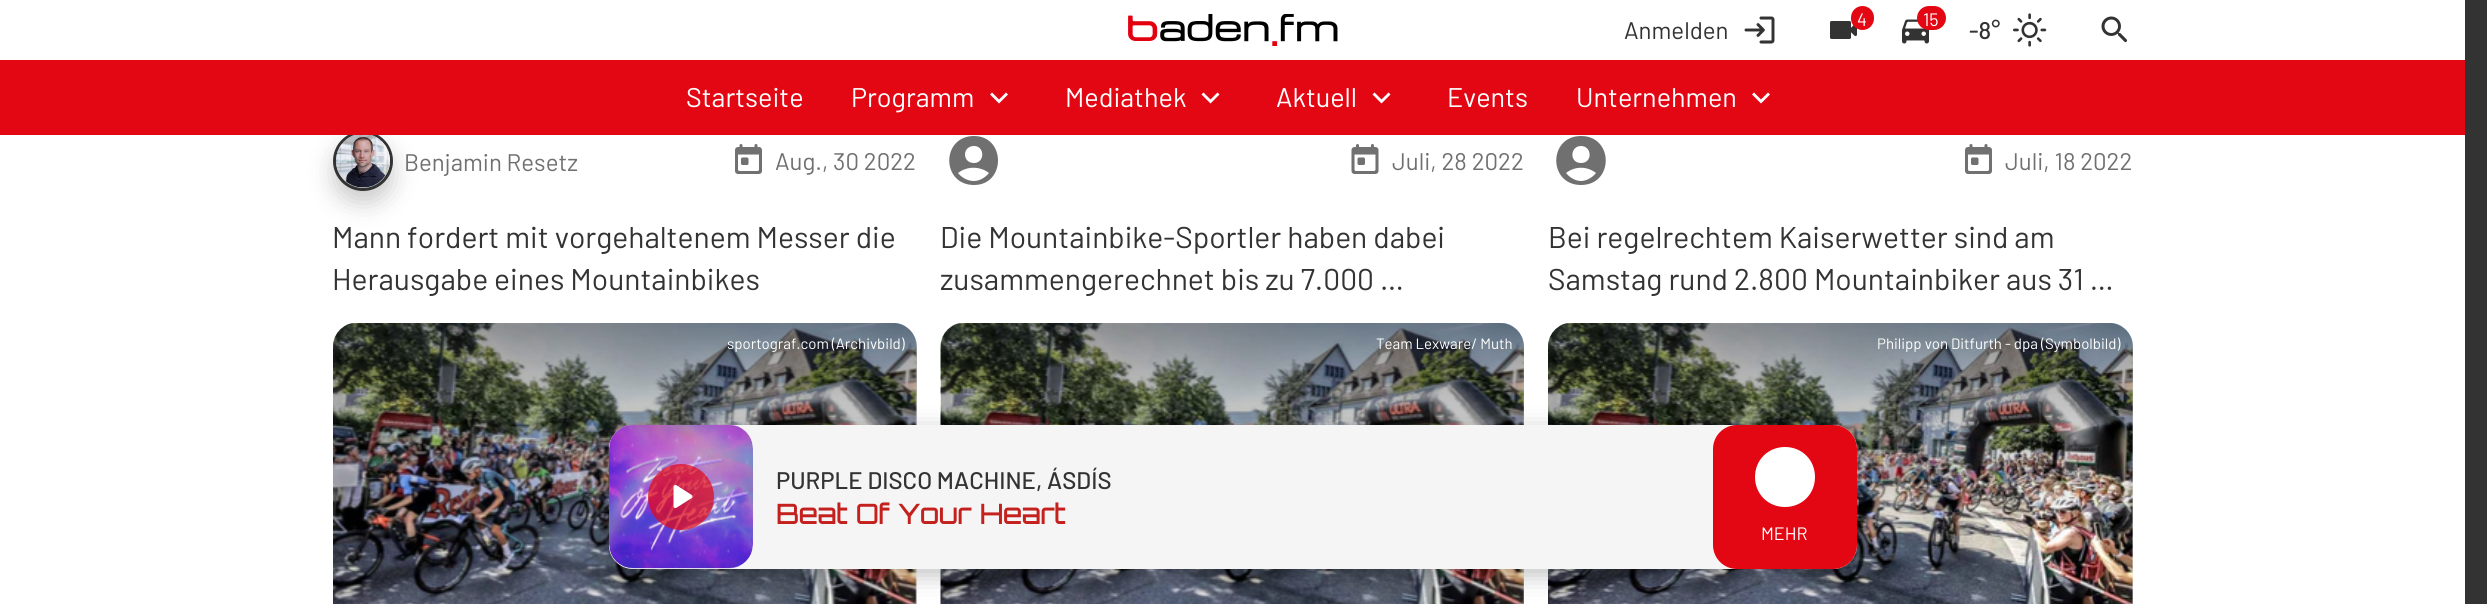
#include <cairo/cairo.h>
#include <math.h>
#include <stddef.h>


static void draw_spaced(cairo_t *cr, double x, double y, const char *s, double letter, double word) {
  cairo_move_to(cr, x, y);
  while (*s) {
    char ch[5] = {0};
    int n = 0;
    do ch[n++] = *s++; while ((*s & 0xC0) == 0x80);
    cairo_show_text(cr, ch);
    cairo_rel_move_to(cr, letter + word * (*ch == ' '), 0);
  }
}

static void rounded_rect(cairo_t *cr, double x, double y, double w, double h, double r) {
  cairo_new_sub_path(cr);
  cairo_arc(cr, x + w - r, y + h - r, r, 0, M_PI / 2);
  cairo_arc(cr, x + r, y + h - r, r, M_PI / 2, M_PI);
  cairo_arc(cr, x + r, y + r, r, M_PI, 1.5 * M_PI);
  cairo_arc(cr, x + w - r, y + r, r, 1.5 * M_PI, 2 * M_PI);
  cairo_close_path(cr);
}

static void draw_shadow(cairo_t *cr, double x, double y, double w, double h, double r, double blur, double alpha) {
  cairo_push_group_with_content(cr, CAIRO_CONTENT_ALPHA);
  cairo_set_operator(cr, CAIRO_OPERATOR_SOURCE);
  for (int i = 15; i >= -15 && fmin(w, h) + blur * i / 3 > 0; i -= 2) {
    double e = blur * i / 6;
    cairo_set_source_rgba(cr, 0, 0, 0, alpha * erfc((i - 1) / 8.5) / 2);
    rounded_rect(cr, x - e, y - e, w + 2 * e, h + 2 * e, fmax(0, fmin(r + e + blur * .6, fmin(w, h) / 2 + e)));
    cairo_fill(cr);
  }
  cairo_pattern_t *soft = cairo_pop_group(cr);
  cairo_mask(cr, soft);
  cairo_pattern_destroy(soft);
}

static void draw_image(cairo_t *cr, const char *path, double x, double y, double w, double h) {
  cairo_surface_t *image = cairo_image_surface_create_from_png(path);
  cairo_save(cr);
  cairo_set_source_surface(cr, image, x, y);
  cairo_rectangle(cr, x, y, w, h);
  cairo_fill(cr);
  cairo_restore(cr);
  cairo_surface_destroy(image);
}

static void draw(cairo_t *cr) {
  cairo_pattern_t *gradient;
  cairo_set_source_rgb(cr, 51 / 255.0, 51 / 255.0, 51 / 255.0);
  cairo_paint(cr);
  cairo_set_source_rgb(cr, 1, 1, 1);
  cairo_rectangle(cr, 0, 135, 2465, 469);
  cairo_fill(cr);
  cairo_rectangle(cr, 0, 0, 2465, 60);
  cairo_fill(cr);
  draw_image(cr, "images/1.png", 1128, 14, 210, 32);
  draw_image(cr, "images/2.png", 1744, 16, 31, 28);
  draw_image(cr, "images/3.png", 1830, 21, 27, 18);
  cairo_set_source_rgb(cr, 227 / 255.0, 6 / 255.0, 19 / 255.0);
  rounded_rect(cr, 1851, 6, 23, 24, 11.5);
  cairo_fill(cr);
  draw_image(cr, "images/4.png", 1902, 19, 27, 25);
  rounded_rect(cr, 1917, 6, 29, 24, 12);
  cairo_fill(cr);
  draw_image(cr, "images/5.png", 2013, 13, 34, 34);
  draw_image(cr, "images/6.png", 2101, 16, 27, 27);
  cairo_set_source_rgb(cr, 0, 0, 0);
  draw_shadow(cr, 333, 143, 60, 60, 30, 12, 0.2);
  cairo_arc(cr, 363, 161, 28.5, 0, 2 * M_PI);
  cairo_set_source_rgb(cr, 51 / 255.0, 51 / 255.0, 51 / 255.0);
  cairo_set_line_width(cr, 3);
  cairo_stroke(cr);
  cairo_set_source_rgb(cr, 227 / 255.0, 6 / 255.0, 19 / 255.0);
  cairo_rectangle(cr, 0, 60, 2465, 75);
  cairo_fill(cr);
  cairo_set_source_rgb(cr, 1, 1, 1);
  cairo_new_path(cr);
  cairo_move_to(cr, 1006, 92.5);
  cairo_line_to(cr, 1008, 94.5);
  cairo_line_to(cr, 999, 103.5);
  cairo_line_to(cr, 990, 94.5);
  cairo_line_to(cr, 992, 92.5);
  cairo_line_to(cr, 999, 99.5);
  cairo_close_path(cr);
  cairo_fill(cr);
  cairo_new_path(cr);
  cairo_move_to(cr, 1217.5, 92.5);
  cairo_line_to(cr, 1219.5, 94.5);
  cairo_line_to(cr, 1210.5, 103.5);
  cairo_line_to(cr, 1201.5, 94.5);
  cairo_line_to(cr, 1203.5, 92.5);
  cairo_line_to(cr, 1210.5, 99.5);
  cairo_close_path(cr);
  cairo_fill(cr);
  cairo_new_path(cr);
  cairo_move_to(cr, 1388.5, 92.5);
  cairo_line_to(cr, 1390.5, 94.5);
  cairo_line_to(cr, 1381.5, 103.5);
  cairo_line_to(cr, 1372.5, 94.5);
  cairo_line_to(cr, 1374.5, 92.5);
  cairo_line_to(cr, 1381.5, 99.5);
  cairo_close_path(cr);
  cairo_fill(cr);
  cairo_new_path(cr);
  cairo_move_to(cr, 1768, 92.5);
  cairo_line_to(cr, 1770, 94.5);
  cairo_line_to(cr, 1761, 103.5);
  cairo_line_to(cr, 1752, 94.5);
  cairo_line_to(cr, 1754, 92.5);
  cairo_line_to(cr, 1761, 99.5);
  cairo_close_path(cr);
  cairo_fill(cr);
  draw_image(cr, "images/7.png", 336, 135, 54, 53);
  draw_image(cr, "images/8.png", 735, 144, 27, 30);
  cairo_set_source_rgb(cr, 112 / 255.0, 112 / 255.0, 112 / 255.0);
  cairo_new_path(cr);
  cairo_move_to(cr, 974, 136);
  cairo_curve_to(cr, 941, 136, 941, 185, 974, 185);
  cairo_curve_to(cr, 1006, 185, 1006, 136, 974, 136);
  cairo_close_path(cr);
  cairo_move_to(cr, 974, 146);
  cairo_curve_to(cr, 985, 146, 985, 163, 974, 163);
  cairo_curve_to(cr, 962, 163, 962, 146, 974, 146);
  cairo_close_path(cr);
  cairo_move_to(cr, 974, 181);
  cairo_curve_to(cr, 968, 181, 962, 178, 958, 173);
  cairo_curve_to(cr, 967, 166, 980, 166, 989, 173);
  cairo_curve_to(cr, 985, 178, 979, 181, 974, 181);
  cairo_close_path(cr);
  cairo_fill(cr);
  draw_image(cr, "images/9.png", 1351, 144, 28, 30);
  cairo_new_path(cr);
  cairo_move_to(cr, 1581, 136);
  cairo_curve_to(cr, 1548, 136, 1548, 185, 1581, 185);
  cairo_curve_to(cr, 1614, 185, 1614, 136, 1581, 136);
  cairo_close_path(cr);
  cairo_move_to(cr, 1581, 146);
  cairo_curve_to(cr, 1592, 146, 1593, 163, 1581, 163);
  cairo_curve_to(cr, 1569, 163, 1570, 146, 1581, 146);
  cairo_close_path(cr);
  cairo_move_to(cr, 1581, 181);
  cairo_curve_to(cr, 1576, 181, 1570, 178, 1566, 173);
  cairo_curve_to(cr, 1575, 166, 1587, 166, 1596, 173);
  cairo_curve_to(cr, 1592, 178, 1586, 181, 1581, 181);
  cairo_close_path(cr);
  cairo_fill(cr);
  draw_image(cr, "images/8.png", 1965, 144, 27, 30);
  draw_image(cr, "images/10.png", 333, 338, 583, 245);
  draw_image(cr, "images/11.png", 333, 323, 584, 281);
  gradient = cairo_pattern_create_linear(625, 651, 625, 323);
  cairo_pattern_add_color_stop_rgba(gradient, 0.4, 0, 0, 0, 0);
  cairo_pattern_add_color_stop_rgba(gradient, 1, 0, 0, 0, 0.4);
  cairo_set_source(cr, gradient);
  cairo_pattern_destroy(gradient);
  rounded_rect(cr, 333, 323, 584, 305, 24);
  cairo_fill(cr);
  draw_image(cr, "images/12.png", 941, 339, 583, 244);
  draw_image(cr, "images/13.png", 940, 323, 584, 281);
  gradient = cairo_pattern_create_linear(1232, 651, 1232, 323);
  cairo_pattern_add_color_stop_rgba(gradient, 0.4, 0, 0, 0, 0);
  cairo_pattern_add_color_stop_rgba(gradient, 1, 0, 0, 0, 0.4);
  cairo_set_source(cr, gradient);
  cairo_pattern_destroy(gradient);
  rounded_rect(cr, 941, 323, 583, 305, 24);
  cairo_fill(cr);
  draw_image(cr, "images/14.png", 2131, 339, 2, 243);
  draw_image(cr, "images/15.png", 1548, 323, 585, 281);
  gradient = cairo_pattern_create_linear(1841, 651, 1841, 323);
  cairo_pattern_add_color_stop_rgba(gradient, 0.4, 0, 0, 0, 0);
  cairo_pattern_add_color_stop_rgba(gradient, 1, 0, 0, 0, 0.4);
  cairo_set_source(cr, gradient);
  cairo_pattern_destroy(gradient);
  rounded_rect(cr, 1548, 323, 585, 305, 24);
  cairo_fill(cr);
  cairo_set_source_rgb(cr, 0, 0, 0);
  draw_shadow(cr, 609, 431, 1248, 144, 24, 12, 0.25);
  cairo_set_source_rgb(cr, 245 / 255.0, 245 / 255.0, 245 / 255.0);
  rounded_rect(cr, 609, 425, 1248, 144, 24);
  cairo_fill(cr);
  draw_image(cr, "images/16.png", 609, 424, 144, 145);
  cairo_set_source_rgba(cr, 227 / 255.0, 6 / 255.0, 19 / 255.0, 0.7);
  cairo_arc(cr, 681, 497, 33, 0, 2 * M_PI);
  cairo_fill(cr);
  draw_image(cr, "images/17.png", 673, 484, 20, 25);
  cairo_set_source_rgb(cr, 227 / 255.0, 6 / 255.0, 19 / 255.0);
  rounded_rect(cr, 1713, 425, 144, 144, 24);
  cairo_fill(cr);
  cairo_set_source_rgb(cr, 1, 1, 1);
  cairo_new_path(cr);
  cairo_move_to(cr, 1785, 447);
  cairo_curve_to(cr, 1802, 447, 1815, 460, 1815, 477);
  cairo_curve_to(cr, 1815, 494, 1802, 507, 1785, 507);
  cairo_curve_to(cr, 1768, 507, 1755, 494, 1755, 477);
  cairo_curve_to(cr, 1755, 460, 1768, 447, 1785, 447);
  cairo_close_path(cr);
  cairo_fill(cr);
  cairo_select_font_face(cr, "Barlow", CAIRO_FONT_SLANT_NORMAL, CAIRO_FONT_WEIGHT_NORMAL);
  cairo_set_font_size(cr, 24);
  cairo_set_source_rgb(cr, 51 / 255.0, 51 / 255.0, 51 / 255.0);
  cairo_move_to(cr, 1624, 39);
  cairo_show_text(cr, "Anmelden");
  cairo_set_font_size(cr, 18);
  cairo_set_source_rgb(cr, 1, 1, 1);
  cairo_move_to(cr, 1857, 26);
  cairo_show_text(cr, "4");
  cairo_move_to(cr, 1923, 26);
  cairo_show_text(cr, "15");
  cairo_select_font_face(cr, "Barlow Medium", CAIRO_FONT_SLANT_NORMAL, CAIRO_FONT_WEIGHT_NORMAL);
  cairo_set_font_size(cr, 24);
  cairo_set_source_rgb(cr, 51 / 255.0, 51 / 255.0, 51 / 255.0);
  cairo_move_to(cr, 1969, 39);
  cairo_show_text(cr, "-8°");
  cairo_select_font_face(cr, "Barlow", CAIRO_FONT_SLANT_NORMAL, CAIRO_FONT_WEIGHT_NORMAL);
  cairo_set_font_size(cr, 27);
  cairo_set_source_rgb(cr, 1, 1, 1);
  cairo_move_to(cr, 686, 107);
  cairo_show_text(cr, "Startseite");
  cairo_move_to(cr, 851, 107);
  cairo_show_text(cr, "Programm");
  cairo_move_to(cr, 1065, 107);
  cairo_show_text(cr, "Mediathek");
  cairo_move_to(cr, 1276, 107);
  cairo_show_text(cr, "Aktuell");
  cairo_move_to(cr, 1447, 107);
  cairo_show_text(cr, "Events");
  cairo_move_to(cr, 1576, 107);
  cairo_show_text(cr, "Unternehmen");
  cairo_set_font_size(cr, 24);
  cairo_set_source_rgb(cr, 112 / 255.0, 112 / 255.0, 112 / 255.0);
  cairo_move_to(cr, 404, 171);
  cairo_show_text(cr, "Benjamin Resetz");
  cairo_move_to(cr, 775, 170);
  cairo_show_text(cr, "Aug., 30 2022");
  cairo_set_font_size(cr, 30);
  cairo_set_source_rgb(cr, 51 / 255.0, 51 / 255.0, 51 / 255.0);
  cairo_move_to(cr, 332, 248);
  cairo_show_text(cr, "Mann fordert mit vorgehaltenem Messer die");
  cairo_move_to(cr, 332, 290);
  cairo_show_text(cr, "Herausgabe eines Mountainbikes");
  cairo_set_font_size(cr, 24);
  cairo_set_source_rgb(cr, 112 / 255.0, 112 / 255.0, 112 / 255.0);
  cairo_move_to(cr, 1392, 170);
  cairo_show_text(cr, "Juli, 28 2022");
  cairo_set_font_size(cr, 30);
  cairo_set_source_rgb(cr, 51 / 255.0, 51 / 255.0, 51 / 255.0);
  cairo_move_to(cr, 940, 248);
  cairo_show_text(cr, "Die Mountainbike-Sportler haben dabei");
  cairo_move_to(cr, 940, 290);
  cairo_show_text(cr, "zusammengerechnet bis zu 7.000 …");
  cairo_set_font_size(cr, 24);
  cairo_set_source_rgb(cr, 112 / 255.0, 112 / 255.0, 112 / 255.0);
  cairo_move_to(cr, 2005, 170);
  cairo_show_text(cr, "Juli, 18 2022");
  cairo_set_font_size(cr, 30);
  cairo_set_source_rgb(cr, 51 / 255.0, 51 / 255.0, 51 / 255.0);
  cairo_move_to(cr, 1548, 248);
  cairo_show_text(cr, "Bei regelrechtem Kaiserwetter sind am");
  cairo_move_to(cr, 1548, 290);
  cairo_show_text(cr, "Samstag rund 2.800 Mountainbiker aus 31 …");
  cairo_set_font_size(cr, 15);
  cairo_set_source_rgb(cr, 1, 1, 1);
  cairo_move_to(cr, 727, 349);
  cairo_show_text(cr, "sportograf.com (Archivbild)");
  cairo_move_to(cr, 1376, 349);
  cairo_show_text(cr, "Team Lexware/ Muth");
  cairo_move_to(cr, 1877, 349);
  cairo_show_text(cr, "Philipp von Ditfurth - dpa (Symbolbild)");
  cairo_select_font_face(cr, "Barlow Medium", CAIRO_FONT_SLANT_NORMAL, CAIRO_FONT_WEIGHT_NORMAL);
  cairo_set_font_size(cr, 24);
  cairo_set_source_rgb(cr, 51 / 255.0, 51 / 255.0, 51 / 255.0);
  cairo_move_to(cr, 776, 489);
  cairo_show_text(cr, "PURPLE DISCO MACHINE, ÁSDÍS");
  cairo_select_font_face(cr, "Orbitron", CAIRO_FONT_SLANT_NORMAL, CAIRO_FONT_WEIGHT_BOLD);
  cairo_set_font_size(cr, 27);
  cairo_set_source_rgb(cr, 195 / 255.0, 32 / 255.0, 30 / 255.0);
  draw_spaced(cr, 776, 524, "Beat Of Your Heart", 0, 1.5);
  cairo_select_font_face(cr, "Barlow", CAIRO_FONT_SLANT_NORMAL, CAIRO_FONT_WEIGHT_NORMAL);
  cairo_set_font_size(cr, 18);
  cairo_set_source_rgb(cr, 1, 1, 1);
  cairo_move_to(cr, 1761, 540);
  cairo_show_text(cr, "MEHR");
}

int main(void) {
  cairo_surface_t *surface = cairo_image_surface_create(CAIRO_FORMAT_RGB24, 2487, 604);
  cairo_t *cr = cairo_create(surface);
  cairo_font_options_t *options = cairo_font_options_create();
  cairo_font_options_set_hint_metrics(options, CAIRO_HINT_METRICS_OFF);
  cairo_font_options_set_hint_style(options, CAIRO_HINT_STYLE_NONE);
  cairo_set_font_options(cr, options);
  cairo_set_miter_limit(cr, 4);
  draw(cr);
  cairo_surface_write_to_png(surface, "out.png");
  cairo_font_options_destroy(options);
  cairo_destroy(cr);
  cairo_surface_destroy(surface);
  return 0;
}
